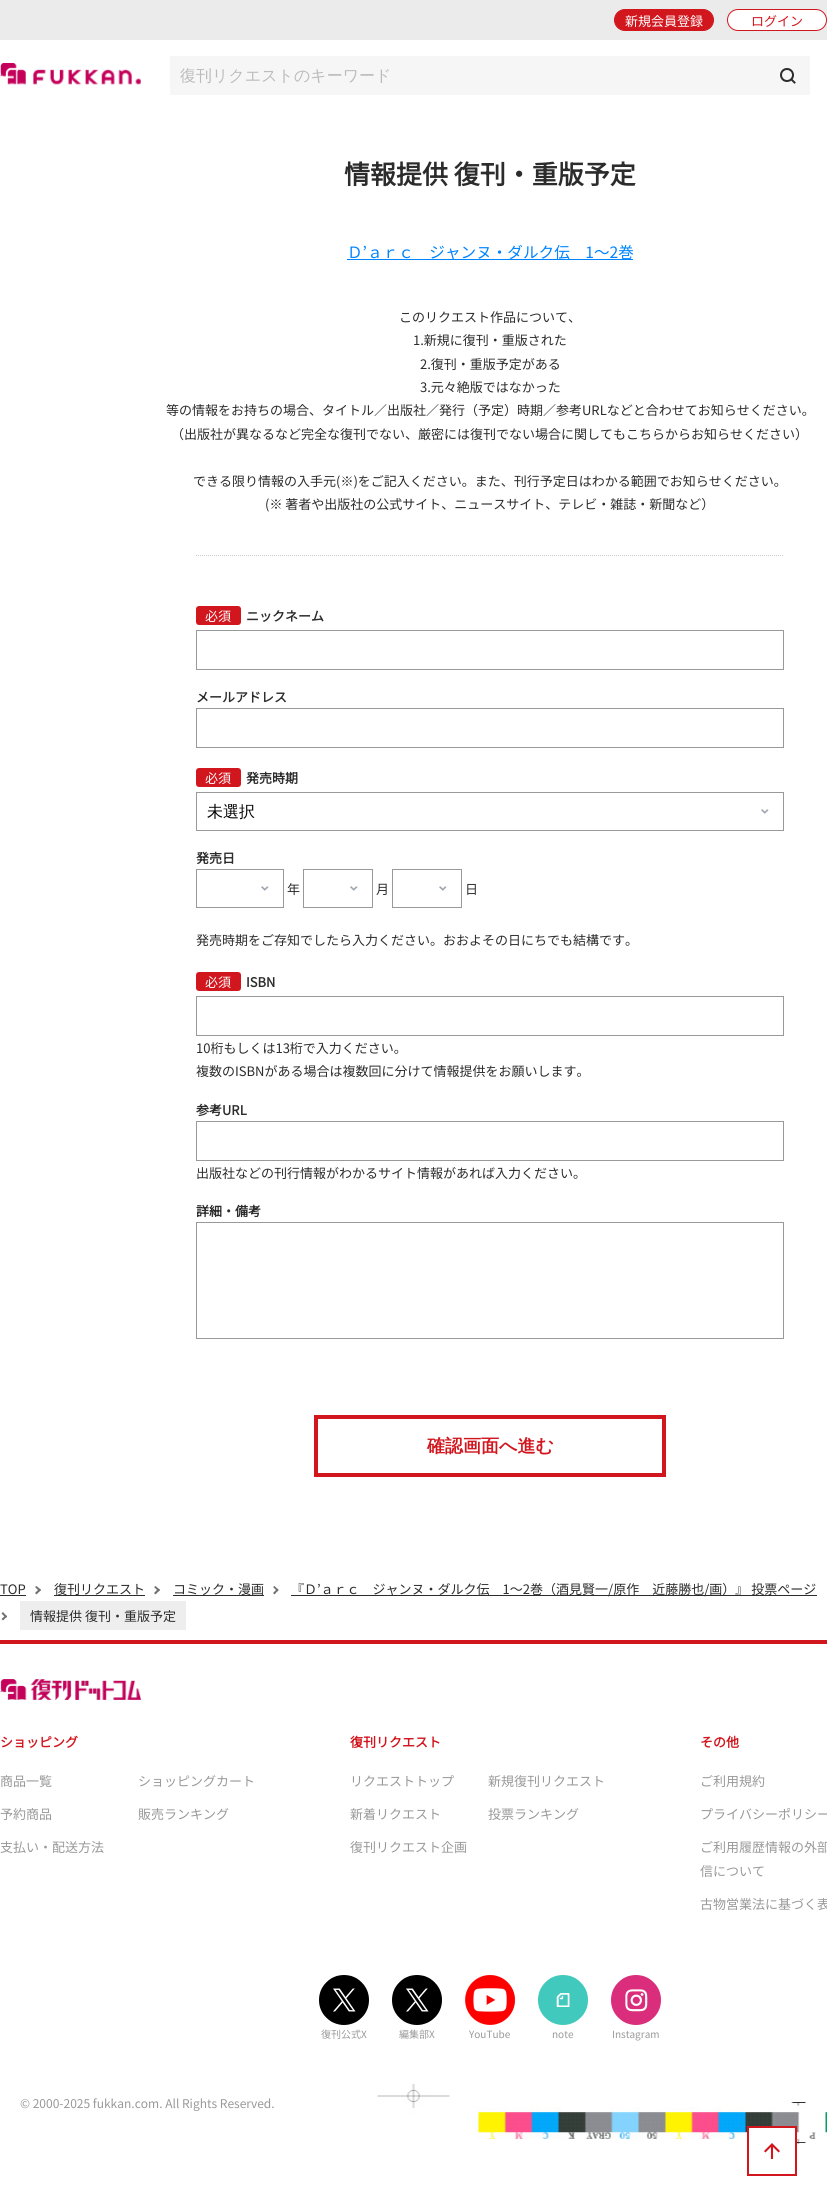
#include <cairo/cairo.h>
#include <math.h>
#include <stddef.h>


static void rounded_rect(cairo_t *cr, double x, double y, double w, double h, double r) {
  cairo_new_sub_path(cr);
  cairo_arc(cr, x + w - r, y + h - r, r, 0, M_PI / 2);
  cairo_arc(cr, x + r, y + h - r, r, M_PI / 2, M_PI);
  cairo_arc(cr, x + r, y + r, r, M_PI, 1.5 * M_PI);
  cairo_arc(cr, x + w - r, y + r, r, 1.5 * M_PI, 2 * M_PI);
  cairo_close_path(cr);
}

static void draw_image(cairo_t *cr, const char *path, double x, double y, double w, double h) {
  cairo_surface_t *image = cairo_image_surface_create_from_png(path);
  cairo_save(cr);
  cairo_set_source_surface(cr, image, x, y);
  cairo_rectangle(cr, x, y, w, h);
  cairo_fill(cr);
  cairo_restore(cr);
  cairo_surface_destroy(image);
}

static void draw(cairo_t *cr) {
  cairo_set_source_rgb(cr, 1, 1, 1);
  cairo_paint(cr);
  cairo_set_source_rgb(cr, 235 / 255.0, 235 / 255.0, 235 / 255.0);
  cairo_rectangle(cr, 0, 0, 827, 40);
  cairo_fill(cr);
  cairo_set_source_rgb(cr, 210 / 255.0, 22 / 255.0, 30 / 255.0);
  rounded_rect(cr, 614.5, 9.5, 99, 21, 10.5);
  cairo_fill_preserve(cr);
  cairo_set_line_width(cr, 1);
  cairo_stroke(cr);
  cairo_set_source_rgb(cr, 1, 1, 1);
  rounded_rect(cr, 727.5, 9.5, 99, 21, 10.5);
  cairo_fill_preserve(cr);
  cairo_set_source_rgb(cr, 210 / 255.0, 22 / 255.0, 30 / 255.0);
  cairo_stroke(cr);
  draw_image(cr, "images/1.png", 0, 63, 141, 22);
  cairo_set_source_rgb(cr, 246 / 255.0, 246 / 255.0, 246 / 255.0);
  cairo_rectangle(cr, 170, 56, 640, 39);
  cairo_fill(cr);
  draw_image(cr, "images/2.png", 780, 68, 16, 16);
  cairo_set_source_rgb(cr, 0, 132 / 255.0, 1);
  cairo_rectangle(cr, 347, 259, 286, 1);
  cairo_fill(cr);
  cairo_new_path(cr);
  cairo_move_to(cr, 196, 555.5);
  cairo_line_to(cr, 784, 555.5);
  cairo_set_source_rgb(cr, 204 / 255.0, 204 / 255.0, 204 / 255.0);
  cairo_set_dash(cr, (double[]){1, 1}, 2, 0);
  cairo_stroke(cr);
  cairo_set_source_rgb(cr, 210 / 255.0, 22 / 255.0, 30 / 255.0);
  rounded_rect(cr, 196, 606, 45, 19, 3);
  cairo_fill(cr);
  cairo_rectangle(cr, 196.5, 630.5, 587, 39);
  cairo_set_source_rgb(cr, 153 / 255.0, 153 / 255.0, 153 / 255.0);
  cairo_set_dash(cr, NULL, 0, 0);
  cairo_stroke(cr);
  cairo_rectangle(cr, 196.5, 708.5, 587, 39);
  cairo_stroke(cr);
  cairo_set_source_rgb(cr, 210 / 255.0, 22 / 255.0, 30 / 255.0);
  rounded_rect(cr, 196, 768, 45, 19, 3);
  cairo_fill(cr);
  draw_image(cr, "images/3.png", 761, 809, 8, 5);
  cairo_rectangle(cr, 196.5, 792.5, 587, 38);
  cairo_set_source_rgb(cr, 153 / 255.0, 153 / 255.0, 153 / 255.0);
  cairo_stroke(cr);
  draw_image(cr, "images/3.png", 261, 886, 8, 5);
  cairo_rectangle(cr, 196.5, 869.5, 87, 38);
  cairo_stroke(cr);
  draw_image(cr, "images/3.png", 350, 886, 8, 5);
  cairo_rectangle(cr, 303.5, 869.5, 69, 38);
  cairo_stroke(cr);
  draw_image(cr, "images/4.png", 439, 886, 8, 5);
  cairo_rectangle(cr, 392.5, 869.5, 69, 38);
  cairo_stroke(cr);
  cairo_set_source_rgb(cr, 210 / 255.0, 22 / 255.0, 30 / 255.0);
  rounded_rect(cr, 196, 972, 45, 19, 3);
  cairo_fill(cr);
  cairo_rectangle(cr, 196.5, 996.5, 587, 39);
  cairo_set_source_rgb(cr, 153 / 255.0, 153 / 255.0, 153 / 255.0);
  cairo_stroke(cr);
  cairo_rectangle(cr, 196.5, 1121.5, 587, 39);
  cairo_stroke(cr);
  cairo_rectangle(cr, 196.5, 1222.5, 587, 116);
  cairo_stroke(cr);
  cairo_rectangle(cr, 316, 1417, 348, 58);
  cairo_set_source_rgb(cr, 210 / 255.0, 22 / 255.0, 30 / 255.0);
  cairo_set_line_width(cr, 4);
  cairo_stroke(cr);
  cairo_set_source_rgb(cr, 44 / 255.0, 44 / 255.0, 44 / 255.0);
  cairo_rectangle(cr, 0, 1595, 26, 1);
  cairo_fill(cr);
  cairo_set_source_rgb(cr, 112 / 255.0, 112 / 255.0, 112 / 255.0);
  cairo_new_path(cr);
  cairo_move_to(cr, 36.5, 1586);
  cairo_line_to(cr, 41, 1590);
  cairo_line_to(cr, 39.5, 1591.5);
  cairo_line_to(cr, 35, 1587);
  cairo_close_path(cr);
  cairo_fill(cr);
  cairo_new_path(cr);
  cairo_move_to(cr, 39.5, 1588.5);
  cairo_line_to(cr, 41, 1590);
  cairo_line_to(cr, 36.5, 1594.5);
  cairo_line_to(cr, 35, 1593);
  cairo_close_path(cr);
  cairo_fill(cr);
  cairo_set_source_rgb(cr, 44 / 255.0, 44 / 255.0, 44 / 255.0);
  cairo_rectangle(cr, 54, 1595, 91, 1);
  cairo_fill(cr);
  cairo_set_source_rgb(cr, 112 / 255.0, 112 / 255.0, 112 / 255.0);
  cairo_new_path(cr);
  cairo_move_to(cr, 155.5, 1586);
  cairo_line_to(cr, 160, 1590);
  cairo_line_to(cr, 158.5, 1591.5);
  cairo_line_to(cr, 154, 1587);
  cairo_close_path(cr);
  cairo_fill(cr);
  cairo_new_path(cr);
  cairo_move_to(cr, 158.5, 1588.5);
  cairo_line_to(cr, 160, 1590);
  cairo_line_to(cr, 155.5, 1594.5);
  cairo_line_to(cr, 154, 1593);
  cairo_close_path(cr);
  cairo_fill(cr);
  cairo_set_source_rgb(cr, 44 / 255.0, 44 / 255.0, 44 / 255.0);
  cairo_rectangle(cr, 173, 1595, 91, 1);
  cairo_fill(cr);
  cairo_set_source_rgb(cr, 112 / 255.0, 112 / 255.0, 112 / 255.0);
  cairo_new_path(cr);
  cairo_move_to(cr, 274.5, 1586);
  cairo_line_to(cr, 278.5, 1590);
  cairo_line_to(cr, 277.5, 1591.5);
  cairo_line_to(cr, 273, 1587);
  cairo_close_path(cr);
  cairo_fill(cr);
  cairo_new_path(cr);
  cairo_move_to(cr, 277.5, 1588.5);
  cairo_line_to(cr, 278.5, 1590);
  cairo_line_to(cr, 274.5, 1594.5);
  cairo_line_to(cr, 273, 1593);
  cairo_close_path(cr);
  cairo_fill(cr);
  cairo_set_source_rgb(cr, 44 / 255.0, 44 / 255.0, 44 / 255.0);
  cairo_rectangle(cr, 291, 1595, 526, 1);
  cairo_fill(cr);
  cairo_set_source_rgb(cr, 112 / 255.0, 112 / 255.0, 112 / 255.0);
  cairo_new_path(cr);
  cairo_move_to(cr, 3, 1612);
  cairo_line_to(cr, 7, 1616.5);
  cairo_line_to(cr, 6, 1618);
  cairo_line_to(cr, 1.5, 1613.5);
  cairo_close_path(cr);
  cairo_fill(cr);
  cairo_new_path(cr);
  cairo_move_to(cr, 6, 1615);
  cairo_line_to(cr, 7, 1616.5);
  cairo_line_to(cr, 3, 1620.5);
  cairo_line_to(cr, 1.5, 1619);
  cairo_close_path(cr);
  cairo_fill(cr);
  cairo_set_source_rgb(cr, 238 / 255.0, 238 / 255.0, 238 / 255.0);
  cairo_rectangle(cr, 20, 1601, 166, 29);
  cairo_fill(cr);
  draw_image(cr, "images/5.png", 377, 2084, 450, 60);
  cairo_set_source_rgb(cr, 210 / 255.0, 22 / 255.0, 30 / 255.0);
  cairo_rectangle(cr, 0, 1640, 827, 4);
  cairo_fill(cr);
  draw_image(cr, "images/6.png", 0, 1679, 141, 21);
  draw_image(cr, "images/7.png", 319, 1975, 50, 50);
  draw_image(cr, "images/7.png", 392, 1975, 50, 50);
  draw_image(cr, "images/8.png", 465, 1975, 50, 50);
  draw_image(cr, "images/9.png", 538, 1975, 50, 50);
  draw_image(cr, "images/10.png", 611, 1975, 50, 50);
  cairo_set_source_rgb(cr, 1, 1, 1);
  cairo_rectangle(cr, 749, 2128, 46, 16);
  cairo_fill(cr);
  draw_image(cr, "images/11.png", 764, 2143, 16, 16);
  cairo_rectangle(cr, 748, 2127, 48, 48);
  cairo_set_source_rgb(cr, 210 / 255.0, 22 / 255.0, 30 / 255.0);
  cairo_set_line_width(cr, 2);
  cairo_stroke(cr);
  cairo_select_font_face(cr, "Noto Sans JP Thin", CAIRO_FONT_SLANT_NORMAL, CAIRO_FONT_WEIGHT_NORMAL);
  cairo_set_font_size(cr, 13);
  cairo_set_source_rgb(cr, 1, 1, 1);
  cairo_move_to(cr, 625, 26);
  cairo_show_text(cr, "新規会員登録");
  cairo_set_source_rgb(cr, 210 / 255.0, 22 / 255.0, 30 / 255.0);
  cairo_move_to(cr, 751, 26);
  cairo_show_text(cr, "ログイン");
  cairo_select_font_face(cr, "WenQuanYi Zen Hei Medium", CAIRO_FONT_SLANT_NORMAL, CAIRO_FONT_WEIGHT_NORMAL);
  cairo_set_font_size(cr, 16);
  cairo_set_source_rgb(cr, 187 / 255.0, 187 / 255.0, 187 / 255.0);
  cairo_move_to(cr, 180, 81);
  cairo_show_text(cr, "復刊リクエストのキーワード");
  cairo_select_font_face(cr, "Noto Sans JP", CAIRO_FONT_SLANT_NORMAL, CAIRO_FONT_WEIGHT_BOLD);
  cairo_set_font_size(cr, 26);
  cairo_set_source_rgb(cr, 44 / 255.0, 44 / 255.0, 44 / 255.0);
  cairo_move_to(cr, 344, 184);
  cairo_show_text(cr, "情報提供 復刊・重版予定");
  cairo_select_font_face(cr, "Noto Sans JP Thin", CAIRO_FONT_SLANT_NORMAL, CAIRO_FONT_WEIGHT_NORMAL);
  cairo_set_font_size(cr, 15.6);
  cairo_set_source_rgb(cr, 0, 132 / 255.0, 1);
  cairo_move_to(cr, 347, 258);
  cairo_show_text(cr, "Ｄ’ａｒｃ　ジャンヌ・ダルク伝　1～2巻");
  cairo_set_font_size(cr, 13);
  cairo_set_source_rgb(cr, 44 / 255.0, 44 / 255.0, 44 / 255.0);
  cairo_move_to(cr, 399, 322);
  cairo_show_text(cr, "このリクエスト作品について、");
  cairo_move_to(cr, 413, 345);
  cairo_show_text(cr, "1.新規に復刊・重版された");
  cairo_move_to(cr, 420, 369);
  cairo_show_text(cr, "2.復刊・重版予定がある");
  cairo_move_to(cr, 420, 392);
  cairo_show_text(cr, "3.元々絶版ではなかった");
  cairo_move_to(cr, 166, 415);
  cairo_show_text(cr, "等の情報をお持ちの場合、タイトル／出版社／発行（予定）時期／参考URLなどと合わせてお知らせください。");
  cairo_move_to(cr, 171, 439);
  cairo_show_text(cr, "（出版社が異なるなど完全な復刊でない、厳密には復刊でない場合に関してもこちらからお知らせください）");
  cairo_move_to(cr, 193, 486);
  cairo_show_text(cr, "できる限り情報の入手元(※)をご記入ください。また、刊行予定日はわかる範囲でお知らせください。");
  cairo_move_to(cr, 265, 509);
  cairo_show_text(cr, "(※ 著者や出版社の公式サイト、ニュースサイト、テレビ・雑誌・新聞など）");
  cairo_set_source_rgb(cr, 1, 1, 1);
  cairo_move_to(cr, 205, 621);
  cairo_show_text(cr, "必須");
  cairo_select_font_face(cr, "Noto Sans JP", CAIRO_FONT_SLANT_NORMAL, CAIRO_FONT_WEIGHT_BOLD);
  cairo_set_source_rgb(cr, 44 / 255.0, 44 / 255.0, 44 / 255.0);
  cairo_move_to(cr, 246, 621);
  cairo_show_text(cr, "ニックネーム");
  cairo_move_to(cr, 196, 702);
  cairo_show_text(cr, "メールアドレス");
  cairo_select_font_face(cr, "Noto Sans JP Thin", CAIRO_FONT_SLANT_NORMAL, CAIRO_FONT_WEIGHT_NORMAL);
  cairo_set_source_rgb(cr, 1, 1, 1);
  cairo_move_to(cr, 205, 783);
  cairo_show_text(cr, "必須");
  cairo_select_font_face(cr, "Noto Sans JP", CAIRO_FONT_SLANT_NORMAL, CAIRO_FONT_WEIGHT_BOLD);
  cairo_set_source_rgb(cr, 44 / 255.0, 44 / 255.0, 44 / 255.0);
  cairo_move_to(cr, 246, 783);
  cairo_show_text(cr, "発売時期");
  cairo_select_font_face(cr, "WenQuanYi Zen Hei Medium", CAIRO_FONT_SLANT_NORMAL, CAIRO_FONT_WEIGHT_NORMAL);
  cairo_set_font_size(cr, 16);
  cairo_set_source_rgb(cr, 0, 0, 0);
  cairo_move_to(cr, 207, 817);
  cairo_show_text(cr, "未選択");
  cairo_select_font_face(cr, "Noto Sans JP", CAIRO_FONT_SLANT_NORMAL, CAIRO_FONT_WEIGHT_BOLD);
  cairo_set_font_size(cr, 13);
  cairo_set_source_rgb(cr, 44 / 255.0, 44 / 255.0, 44 / 255.0);
  cairo_move_to(cr, 196, 863);
  cairo_show_text(cr, "発売日");
  cairo_select_font_face(cr, "Noto Sans JP Thin", CAIRO_FONT_SLANT_NORMAL, CAIRO_FONT_WEIGHT_NORMAL);
  cairo_move_to(cr, 287, 894);
  cairo_show_text(cr, "年");
  cairo_move_to(cr, 376, 894);
  cairo_show_text(cr, "月");
  cairo_move_to(cr, 465, 894);
  cairo_show_text(cr, "日");
  cairo_move_to(cr, 196, 945);
  cairo_show_text(cr, "発売時期をご存知でしたら入力ください。おおよその日にちでも結構です。");
  cairo_set_source_rgb(cr, 1, 1, 1);
  cairo_move_to(cr, 205, 987);
  cairo_show_text(cr, "必須");
  cairo_select_font_face(cr, "Noto Sans JP", CAIRO_FONT_SLANT_NORMAL, CAIRO_FONT_WEIGHT_BOLD);
  cairo_set_source_rgb(cr, 44 / 255.0, 44 / 255.0, 44 / 255.0);
  cairo_move_to(cr, 246, 987);
  cairo_show_text(cr, "ISBN");
  cairo_select_font_face(cr, "Noto Sans JP Thin", CAIRO_FONT_SLANT_NORMAL, CAIRO_FONT_WEIGHT_NORMAL);
  cairo_move_to(cr, 196, 1053);
  cairo_show_text(cr, "10桁もしくは13桁で入力ください。");
  cairo_move_to(cr, 196, 1076);
  cairo_show_text(cr, "複数のISBNがある場合は複数回に分けて情報提供をお願いします。");
  cairo_select_font_face(cr, "Noto Sans JP", CAIRO_FONT_SLANT_NORMAL, CAIRO_FONT_WEIGHT_BOLD);
  cairo_move_to(cr, 196, 1115);
  cairo_show_text(cr, "参考URL");
  cairo_select_font_face(cr, "Noto Sans JP Thin", CAIRO_FONT_SLANT_NORMAL, CAIRO_FONT_WEIGHT_NORMAL);
  cairo_move_to(cr, 196, 1178);
  cairo_show_text(cr, "出版社などの刊行情報がわかるサイト情報があれば入力ください。");
  cairo_select_font_face(cr, "Noto Sans JP", CAIRO_FONT_SLANT_NORMAL, CAIRO_FONT_WEIGHT_BOLD);
  cairo_move_to(cr, 196, 1216);
  cairo_show_text(cr, "詳細・備考");
  cairo_select_font_face(cr, "WenQuanYi Zen Hei", CAIRO_FONT_SLANT_NORMAL, CAIRO_FONT_WEIGHT_BOLD);
  cairo_set_font_size(cr, 18);
  cairo_set_source_rgb(cr, 210 / 255.0, 22 / 255.0, 30 / 255.0);
  cairo_move_to(cr, 427, 1452);
  cairo_show_text(cr, "確認画面へ進む");
  cairo_select_font_face(cr, "Noto Sans JP Thin", CAIRO_FONT_SLANT_NORMAL, CAIRO_FONT_WEIGHT_NORMAL);
  cairo_set_font_size(cr, 13);
  cairo_set_source_rgb(cr, 44 / 255.0, 44 / 255.0, 44 / 255.0);
  cairo_move_to(cr, 0, 1594);
  cairo_show_text(cr, "TOP");
  cairo_move_to(cr, 54, 1594);
  cairo_show_text(cr, "復刊リクエスト");
  cairo_move_to(cr, 173, 1594);
  cairo_show_text(cr, "コミック・漫画");
  cairo_move_to(cr, 291, 1594);
  cairo_show_text(cr, "『Ｄ’ａｒｃ　ジャンヌ・ダルク伝　1～2巻（酒見賢一/原作　近藤勝也/画）』 投票ページ");
  cairo_move_to(cr, 30, 1621);
  cairo_show_text(cr, "情報提供 復刊・重版予定");
  cairo_select_font_face(cr, "Noto Sans JP", CAIRO_FONT_SLANT_NORMAL, CAIRO_FONT_WEIGHT_BOLD);
  cairo_set_source_rgb(cr, 210 / 255.0, 22 / 255.0, 30 / 255.0);
  cairo_move_to(cr, 0, 1747);
  cairo_show_text(cr, "ショッピング");
  cairo_select_font_face(cr, "Noto Sans JP Thin", CAIRO_FONT_SLANT_NORMAL, CAIRO_FONT_WEIGHT_NORMAL);
  cairo_set_source_rgb(cr, 153 / 255.0, 153 / 255.0, 153 / 255.0);
  cairo_move_to(cr, 0, 1786);
  cairo_show_text(cr, "商品一覧");
  cairo_move_to(cr, 138, 1786);
  cairo_show_text(cr, "ショッピングカート");
  cairo_move_to(cr, 0, 1819);
  cairo_show_text(cr, "予約商品");
  cairo_move_to(cr, 138, 1819);
  cairo_show_text(cr, "販売ランキング");
  cairo_move_to(cr, 0, 1852);
  cairo_show_text(cr, "支払い・配送方法");
  cairo_select_font_face(cr, "Noto Sans JP", CAIRO_FONT_SLANT_NORMAL, CAIRO_FONT_WEIGHT_BOLD);
  cairo_set_source_rgb(cr, 210 / 255.0, 22 / 255.0, 30 / 255.0);
  cairo_move_to(cr, 350, 1747);
  cairo_show_text(cr, "復刊リクエスト");
  cairo_select_font_face(cr, "Noto Sans JP Thin", CAIRO_FONT_SLANT_NORMAL, CAIRO_FONT_WEIGHT_NORMAL);
  cairo_set_source_rgb(cr, 153 / 255.0, 153 / 255.0, 153 / 255.0);
  cairo_move_to(cr, 350, 1786);
  cairo_show_text(cr, "リクエストトップ");
  cairo_move_to(cr, 488, 1786);
  cairo_show_text(cr, "新規復刊リクエスト");
  cairo_move_to(cr, 350, 1819);
  cairo_show_text(cr, "新着リクエスト");
  cairo_move_to(cr, 488, 1819);
  cairo_show_text(cr, "投票ランキング");
  cairo_move_to(cr, 350, 1852);
  cairo_show_text(cr, "復刊リクエスト企画");
  cairo_select_font_face(cr, "Noto Sans JP", CAIRO_FONT_SLANT_NORMAL, CAIRO_FONT_WEIGHT_BOLD);
  cairo_set_source_rgb(cr, 210 / 255.0, 22 / 255.0, 30 / 255.0);
  cairo_move_to(cr, 700, 1747);
  cairo_show_text(cr, "その他");
  cairo_select_font_face(cr, "Noto Sans JP Thin", CAIRO_FONT_SLANT_NORMAL, CAIRO_FONT_WEIGHT_NORMAL);
  cairo_set_source_rgb(cr, 153 / 255.0, 153 / 255.0, 153 / 255.0);
  cairo_move_to(cr, 700, 1786);
  cairo_show_text(cr, "ご利用規約");
  cairo_move_to(cr, 700, 1819);
  cairo_show_text(cr, "プライバシーポリシー");
  cairo_move_to(cr, 700, 1852);
  cairo_show_text(cr, "ご利用履歴情報の外部");
  cairo_move_to(cr, 700, 1876);
  cairo_show_text(cr, "信について");
  cairo_move_to(cr, 700, 1909);
  cairo_show_text(cr, "古物営業法に基づく表");
  cairo_set_font_size(cr, 10);
  cairo_move_to(cr, 321, 2038);
  cairo_show_text(cr, "復刊公式X");
  cairo_move_to(cr, 399, 2038);
  cairo_show_text(cr, "編集部X");
  cairo_move_to(cr, 469, 2038);
  cairo_show_text(cr, "YouTube");
  cairo_move_to(cr, 552, 2038);
  cairo_show_text(cr, "note");
  cairo_move_to(cr, 612, 2038);
  cairo_show_text(cr, "Instagram");
  cairo_set_font_size(cr, 12);
  cairo_move_to(cr, 20, 2108);
  cairo_show_text(cr, "© 2000-2025 fukkan.com. All Rights Reserved.");
}

int main(void) {
  cairo_surface_t *surface = cairo_image_surface_create(CAIRO_FORMAT_RGB24, 827, 2206);
  cairo_t *cr = cairo_create(surface);
  cairo_font_options_t *options = cairo_font_options_create();
  cairo_font_options_set_hint_metrics(options, CAIRO_HINT_METRICS_OFF);
  cairo_font_options_set_hint_style(options, CAIRO_HINT_STYLE_NONE);
  cairo_set_font_options(cr, options);
  cairo_set_miter_limit(cr, 4);
  draw(cr);
  cairo_surface_write_to_png(surface, "out.png");
  cairo_font_options_destroy(options);
  cairo_destroy(cr);
  cairo_surface_destroy(surface);
  return 0;
}
